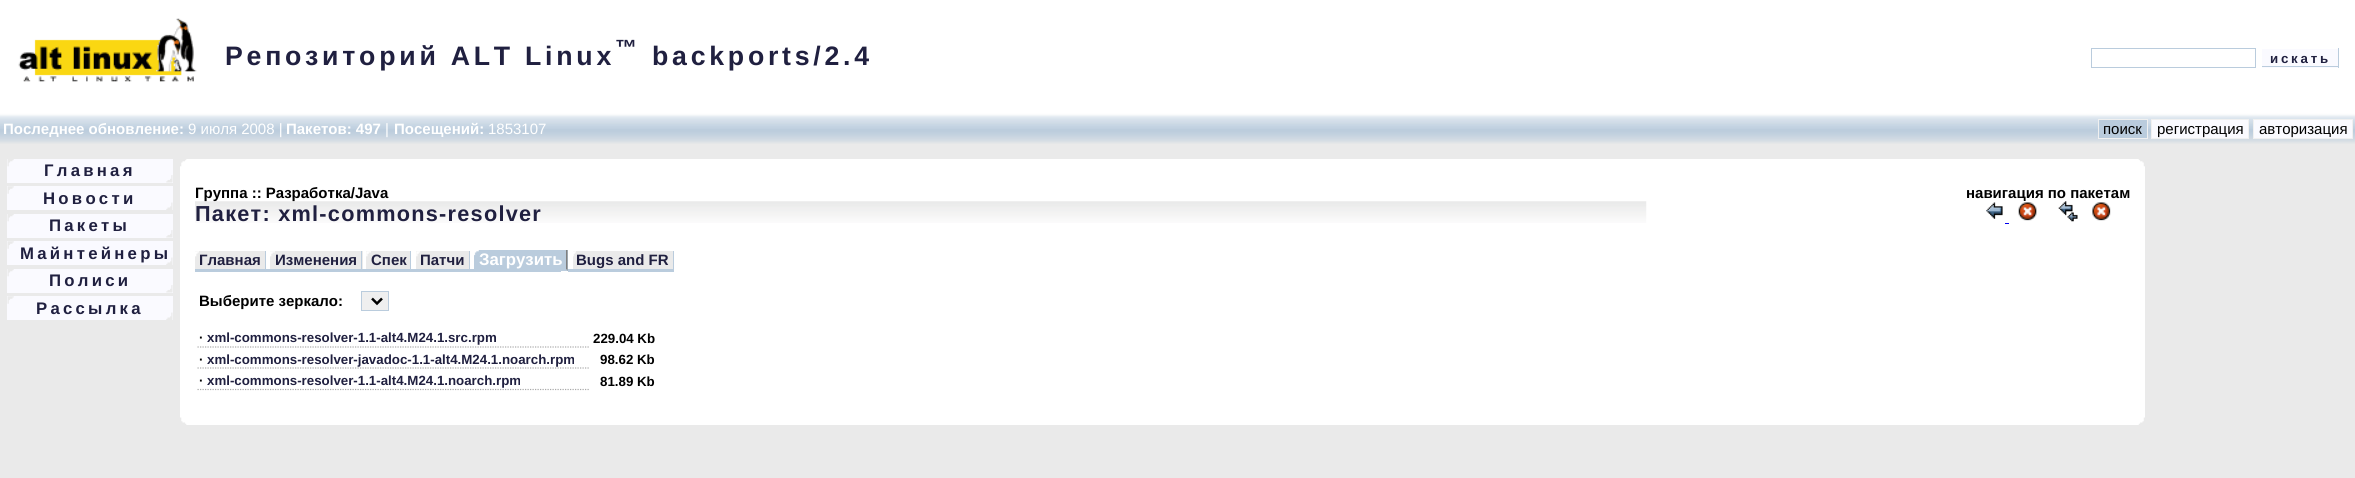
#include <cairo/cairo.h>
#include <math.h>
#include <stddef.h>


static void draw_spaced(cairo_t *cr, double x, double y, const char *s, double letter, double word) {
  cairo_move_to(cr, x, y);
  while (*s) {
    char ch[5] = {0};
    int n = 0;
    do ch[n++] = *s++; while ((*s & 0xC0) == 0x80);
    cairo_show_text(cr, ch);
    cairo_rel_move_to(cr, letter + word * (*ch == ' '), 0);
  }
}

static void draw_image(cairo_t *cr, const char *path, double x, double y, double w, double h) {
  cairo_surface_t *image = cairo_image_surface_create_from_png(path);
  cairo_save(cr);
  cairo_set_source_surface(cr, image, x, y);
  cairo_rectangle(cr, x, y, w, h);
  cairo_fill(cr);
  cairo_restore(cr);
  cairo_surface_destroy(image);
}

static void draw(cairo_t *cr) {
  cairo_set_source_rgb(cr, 234 / 255.0, 234 / 255.0, 234 / 255.0);
  cairo_paint(cr);
  cairo_set_source_rgb(cr, 1, 1, 1);
  cairo_rectangle(cr, 0, 0, 2355, 113);
  cairo_fill(cr);
  draw_image(cr, "images/1.png", 18, 18, 179, 64);
  cairo_rectangle(cr, 2091.5, 48.5, 164, 19);
  cairo_set_source_rgb(cr, 186 / 255.0, 204 / 255.0, 221 / 255.0);
  cairo_set_line_width(cr, 1);
  cairo_stroke(cr);
  cairo_set_source_rgb(cr, 250 / 255.0, 250 / 255.0, 1);
  cairo_rectangle(cr, 2262, 49, 76, 19);
  cairo_fill(cr);
  cairo_set_source_rgb(cr, 186 / 255.0, 204 / 255.0, 221 / 255.0);
  cairo_rectangle(cr, 2338, 48, 1, 20);
  cairo_fill(cr);
  cairo_rectangle(cr, 2261, 66, 78, 1);
  cairo_fill(cr);
  cairo_set_source_rgb(cr, 1, 1, 1);
  cairo_rectangle(cr, 2261, 66, 1, 2);
  cairo_fill(cr);
  draw_image(cr, "images/2.png", 0, 113, 2355, 31);
  cairo_set_source_rgb(cr, 186 / 255.0, 204 / 255.0, 221 / 255.0);
  cairo_rectangle(cr, 2098.5, 119.5, 49, 19);
  cairo_fill_preserve(cr);
  cairo_set_source_rgb(cr, 240 / 255.0, 240 / 255.0, 240 / 255.0);
  cairo_stroke(cr);
  cairo_set_source_rgb(cr, 250 / 255.0, 250 / 255.0, 1);
  cairo_rectangle(cr, 2151.5, 119.5, 97, 19);
  cairo_fill_preserve(cr);
  cairo_set_source_rgb(cr, 240 / 255.0, 240 / 255.0, 240 / 255.0);
  cairo_stroke(cr);
  cairo_set_source_rgb(cr, 250 / 255.0, 250 / 255.0, 1);
  cairo_rectangle(cr, 2253.5, 119.5, 99, 19);
  cairo_fill_preserve(cr);
  cairo_set_source_rgb(cr, 240 / 255.0, 240 / 255.0, 240 / 255.0);
  cairo_stroke(cr);
  cairo_set_source_rgb(cr, 250 / 255.0, 250 / 255.0, 1);
  cairo_rectangle(cr, 7, 159, 166, 24);
  cairo_fill(cr);
  draw_image(cr, "images/3.png", 7, 159, 7, 8);
  draw_image(cr, "images/4.png", 166, 175, 7, 8);
  cairo_rectangle(cr, 7, 186, 166, 24);
  cairo_fill(cr);
  draw_image(cr, "images/5.png", 7, 186, 7, 8);
  draw_image(cr, "images/6.png", 166, 202, 7, 8);
  cairo_rectangle(cr, 7, 214, 166, 24);
  cairo_fill(cr);
  draw_image(cr, "images/3.png", 7, 214, 7, 8);
  draw_image(cr, "images/4.png", 166, 230, 7, 8);
  cairo_rectangle(cr, 7, 241, 166, 24);
  cairo_fill(cr);
  draw_image(cr, "images/5.png", 7, 241, 7, 8);
  draw_image(cr, "images/6.png", 166, 257, 7, 8);
  cairo_rectangle(cr, 7, 269, 166, 24);
  cairo_fill(cr);
  draw_image(cr, "images/3.png", 7, 269, 7, 8);
  draw_image(cr, "images/4.png", 166, 285, 7, 8);
  cairo_rectangle(cr, 7, 296, 166, 24);
  cairo_fill(cr);
  draw_image(cr, "images/5.png", 7, 296, 7, 8);
  draw_image(cr, "images/6.png", 166, 312, 7, 8);
  cairo_set_source_rgb(cr, 1, 1, 1);
  cairo_rectangle(cr, 180, 159, 1965, 266);
  cairo_fill(cr);
  draw_image(cr, "images/7.png", 180, 159, 7, 8);
  draw_image(cr, "images/8.png", 2138, 159, 7, 8);
  draw_image(cr, "images/9.png", 195, 201, 1452, 22);
  draw_image(cr, "images/10.png", 1986, 202, 17, 17);
  draw_image(cr, "images/11.png", 2018, 202, 19, 19);
  draw_image(cr, "images/12.png", 2058, 201, 20, 21);
  draw_image(cr, "images/13.png", 2092, 202, 19, 19);
  cairo_set_source_rgb(cr, 0, 0, 238 / 255.0);
  cairo_rectangle(cr, 2005, 223, 4, 1);
  cairo_fill(cr);
  cairo_set_source_rgb(cr, 234 / 255.0, 234 / 255.0, 234 / 255.0);
  cairo_rectangle(cr, 195, 251, 4, 20);
  cairo_fill(cr);
  draw_image(cr, "images/14.png", 195, 251, 4, 6);
  cairo_set_source_rgb(cr, 186 / 255.0, 204 / 255.0, 221 / 255.0);
  cairo_rectangle(cr, 195, 269, 66, 3);
  cairo_fill(cr);
  cairo_set_source_rgb(cr, 234 / 255.0, 234 / 255.0, 234 / 255.0);
  cairo_rectangle(cr, 199, 251, 62, 18);
  cairo_fill(cr);
  cairo_rectangle(cr, 261, 251, 4, 20);
  cairo_fill(cr);
  cairo_set_source_rgb(cr, 186 / 255.0, 204 / 255.0, 221 / 255.0);
  cairo_rectangle(cr, 265, 251, 1, 20);
  cairo_fill(cr);
  cairo_rectangle(cr, 261, 269, 9, 3);
  cairo_fill(cr);
  cairo_set_source_rgb(cr, 234 / 255.0, 234 / 255.0, 234 / 255.0);
  cairo_rectangle(cr, 270, 251, 5, 20);
  cairo_fill(cr);
  draw_image(cr, "images/15.png", 270, 251, 5, 6);
  cairo_set_source_rgb(cr, 186 / 255.0, 204 / 255.0, 221 / 255.0);
  cairo_rectangle(cr, 270, 269, 86, 3);
  cairo_fill(cr);
  cairo_set_source_rgb(cr, 234 / 255.0, 234 / 255.0, 234 / 255.0);
  cairo_rectangle(cr, 275, 251, 81, 18);
  cairo_fill(cr);
  cairo_rectangle(cr, 356, 251, 7, 20);
  cairo_fill(cr);
  cairo_set_source_rgb(cr, 186 / 255.0, 204 / 255.0, 221 / 255.0);
  cairo_rectangle(cr, 361, 251, 1, 20);
  cairo_fill(cr);
  cairo_rectangle(cr, 356, 269, 11, 3);
  cairo_fill(cr);
  cairo_set_source_rgb(cr, 234 / 255.0, 234 / 255.0, 234 / 255.0);
  cairo_rectangle(cr, 366, 251, 5, 20);
  cairo_fill(cr);
  draw_image(cr, "images/16.png", 366, 251, 5, 6);
  cairo_set_source_rgb(cr, 186 / 255.0, 204 / 255.0, 221 / 255.0);
  cairo_rectangle(cr, 366, 269, 40, 3);
  cairo_fill(cr);
  cairo_set_source_rgb(cr, 234 / 255.0, 234 / 255.0, 234 / 255.0);
  cairo_rectangle(cr, 371, 251, 35, 18);
  cairo_fill(cr);
  cairo_rectangle(cr, 406, 251, 4, 20);
  cairo_fill(cr);
  cairo_set_source_rgb(cr, 186 / 255.0, 204 / 255.0, 221 / 255.0);
  cairo_rectangle(cr, 410, 251, 1, 20);
  cairo_fill(cr);
  cairo_rectangle(cr, 406, 269, 10, 3);
  cairo_fill(cr);
  cairo_set_source_rgb(cr, 234 / 255.0, 234 / 255.0, 234 / 255.0);
  cairo_rectangle(cr, 416, 251, 4, 20);
  cairo_fill(cr);
  draw_image(cr, "images/17.png", 416, 251, 4, 6);
  cairo_set_source_rgb(cr, 186 / 255.0, 204 / 255.0, 221 / 255.0);
  cairo_rectangle(cr, 416, 269, 49, 3);
  cairo_fill(cr);
  cairo_set_source_rgb(cr, 234 / 255.0, 234 / 255.0, 234 / 255.0);
  cairo_rectangle(cr, 420, 251, 45, 18);
  cairo_fill(cr);
  cairo_rectangle(cr, 465, 251, 4, 20);
  cairo_fill(cr);
  cairo_set_source_rgb(cr, 186 / 255.0, 204 / 255.0, 221 / 255.0);
  cairo_rectangle(cr, 469, 251, 1, 20);
  cairo_fill(cr);
  cairo_rectangle(cr, 465, 269, 9, 3);
  cairo_fill(cr);
  cairo_rectangle(cr, 474, 250, 5, 22);
  cairo_fill(cr);
  draw_image(cr, "images/18.png", 474, 250, 5, 6);
  cairo_rectangle(cr, 479, 250, 82, 22);
  cairo_fill(cr);
  cairo_rectangle(cr, 561, 250, 7, 21);
  cairo_fill(cr);
  cairo_set_source_rgb(cr, 128 / 255.0, 128 / 255.0, 128 / 255.0);
  cairo_new_path(cr);
  cairo_move_to(cr, 567.5, 250);
  cairo_line_to(cr, 567.5, 271);
  cairo_line_to(cr, 566, 269);
  cairo_line_to(cr, 566, 250);
  cairo_close_path(cr);
  cairo_fill(cr);
  cairo_set_source_rgb(cr, 186 / 255.0, 204 / 255.0, 221 / 255.0);
  cairo_new_path(cr);
  cairo_move_to(cr, 567.5, 271);
  cairo_line_to(cr, 561, 271);
  cairo_line_to(cr, 561, 269);
  cairo_line_to(cr, 566, 269);
  cairo_close_path(cr);
  cairo_fill(cr);
  cairo_set_source_rgb(cr, 234 / 255.0, 234 / 255.0, 234 / 255.0);
  cairo_rectangle(cr, 573, 251, 3, 20);
  cairo_fill(cr);
  draw_image(cr, "images/19.png", 573, 251, 3, 6);
  cairo_set_source_rgb(cr, 186 / 255.0, 204 / 255.0, 221 / 255.0);
  cairo_rectangle(cr, 573, 269, 96, 3);
  cairo_fill(cr);
  cairo_set_source_rgb(cr, 234 / 255.0, 234 / 255.0, 234 / 255.0);
  cairo_rectangle(cr, 576, 251, 93, 18);
  cairo_fill(cr);
  cairo_rectangle(cr, 669, 251, 4, 20);
  cairo_fill(cr);
  cairo_set_source_rgb(cr, 186 / 255.0, 204 / 255.0, 221 / 255.0);
  cairo_rectangle(cr, 673, 251, 1, 20);
  cairo_fill(cr);
  cairo_rectangle(cr, 669, 269, 5, 3);
  cairo_fill(cr);
  cairo_rectangle(cr, 568, 269, 5, 3);
  cairo_fill(cr);
  cairo_set_source_rgb(cr, 239 / 255.0, 239 / 255.0, 239 / 255.0);
  cairo_rectangle(cr, 361.5, 291.5, 27, 19);
  cairo_fill_preserve(cr);
  cairo_set_source_rgb(cr, 186 / 255.0, 204 / 255.0, 221 / 255.0);
  cairo_stroke(cr);
  cairo_new_path(cr);
  cairo_move_to(cr, 372, 298.5);
  cairo_line_to(cr, 377, 303.5);
  cairo_line_to(cr, 382, 298.5);
  cairo_set_source_rgb(cr, 0, 0, 0);
  cairo_set_line_width(cr, 2.5);
  cairo_stroke(cr);
  cairo_new_path(cr);
  cairo_move_to(cr, 197.5, 347);
  cairo_line_to(cr, 589, 347);
  cairo_set_source_rgb(cr, 170 / 255.0, 170 / 255.0, 170 / 255.0);
  cairo_set_line_width(cr, 1.2);
  cairo_set_dash(cr, (double[]){1.25, 1.25}, 2, 0);
  cairo_stroke(cr);
  cairo_new_path(cr);
  cairo_move_to(cr, 197.5, 368);
  cairo_line_to(cr, 589, 368);
  cairo_stroke(cr);
  cairo_new_path(cr);
  cairo_move_to(cr, 197.5, 389.5);
  cairo_line_to(cr, 589, 389.5);
  cairo_stroke(cr);
  draw_image(cr, "images/20.png", 180, 417, 7, 8);
  draw_image(cr, "images/21.png", 2138, 417, 7, 8);
  cairo_select_font_face(cr, "Liberation Sans", CAIRO_FONT_SLANT_NORMAL, CAIRO_FONT_WEIGHT_BOLD);
  cairo_set_font_size(cr, 22);
  cairo_set_source_rgb(cr, 32 / 255.0, 32 / 255.0, 64 / 255.0);
  draw_spaced(cr, 615, 55, "™", 3.75, 0);
  cairo_set_font_size(cr, 26.7);
  draw_spaced(cr, 225, 65, "Репозиторий ALT Linux", 3.75, 0);
  draw_spaced(cr, 652, 65, "backports/2.4", 3.75, 0);
  cairo_set_font_size(cr, 13.3);
  draw_spaced(cr, 2270, 63, "искать", 2.75, 0);
  cairo_set_font_size(cr, 15);
  cairo_set_source_rgb(cr, 1, 1, 1);
  cairo_move_to(cr, 3, 134);
  cairo_show_text(cr, "Последнее обновление:");
  cairo_select_font_face(cr, "Liberation Sans", CAIRO_FONT_SLANT_NORMAL, CAIRO_FONT_WEIGHT_NORMAL);
  cairo_move_to(cr, 188, 134);
  cairo_show_text(cr, "9 июля 2008 |");
  cairo_select_font_face(cr, "Liberation Sans", CAIRO_FONT_SLANT_NORMAL, CAIRO_FONT_WEIGHT_BOLD);
  cairo_move_to(cr, 286, 134);
  cairo_show_text(cr, "Пакетов: 497");
  cairo_select_font_face(cr, "Liberation Sans", CAIRO_FONT_SLANT_NORMAL, CAIRO_FONT_WEIGHT_NORMAL);
  cairo_move_to(cr, 385, 134);
  cairo_show_text(cr, "|");
  cairo_select_font_face(cr, "Liberation Sans", CAIRO_FONT_SLANT_NORMAL, CAIRO_FONT_WEIGHT_BOLD);
  cairo_move_to(cr, 394, 134);
  cairo_show_text(cr, "Посещений:");
  cairo_select_font_face(cr, "Liberation Sans", CAIRO_FONT_SLANT_NORMAL, CAIRO_FONT_WEIGHT_NORMAL);
  cairo_move_to(cr, 488, 134);
  cairo_show_text(cr, "1853107");
  cairo_set_source_rgb(cr, 0, 0, 0);
  cairo_move_to(cr, 2103, 134);
  cairo_show_text(cr, "поиск");
  cairo_move_to(cr, 2157, 134);
  cairo_show_text(cr, "регистрация");
  cairo_move_to(cr, 2259, 134);
  cairo_show_text(cr, "авторизация");
  cairo_select_font_face(cr, "Liberation Sans", CAIRO_FONT_SLANT_NORMAL, CAIRO_FONT_WEIGHT_BOLD);
  cairo_set_font_size(cr, 16.75);
  cairo_set_source_rgb(cr, 32 / 255.0, 32 / 255.0, 64 / 255.0);
  draw_spaced(cr, 44, 176, "Главная", 3.25, 0);
  draw_spaced(cr, 43, 204, "Новости", 3.25, 0);
  draw_spaced(cr, 49, 231, "Пакеты", 3.25, 0);
  draw_spaced(cr, 20, 259, "Майнтейнеры", 3.25, 0);
  draw_spaced(cr, 49, 286, "Полиси", 3.25, 0);
  draw_spaced(cr, 36, 314, "Рассылка", 3.25, 0);
  cairo_set_font_size(cr, 15);
  cairo_set_source_rgb(cr, 0, 0, 0);
  cairo_move_to(cr, 195, 198);
  cairo_show_text(cr, "Группа :: Разработка/Java");
  cairo_set_font_size(cr, 21.7);
  cairo_set_source_rgb(cr, 32 / 255.0, 32 / 255.0, 64 / 255.0);
  draw_spaced(cr, 195, 221, "Пакет: xml-commons-resolver", 1.25, 0);
  cairo_set_font_size(cr, 15);
  cairo_set_source_rgb(cr, 0, 0, 0);
  cairo_move_to(cr, 1966, 198);
  cairo_show_text(cr, "навигация по пакетам");
  cairo_set_source_rgb(cr, 32 / 255.0, 32 / 255.0, 64 / 255.0);
  cairo_move_to(cr, 199, 265);
  cairo_show_text(cr, "Главная");
  cairo_move_to(cr, 275, 265);
  cairo_show_text(cr, "Изменения");
  cairo_move_to(cr, 371, 265);
  cairo_show_text(cr, "Спек");
  cairo_move_to(cr, 420, 265);
  cairo_show_text(cr, "Патчи");
  cairo_set_font_size(cr, 16.75);
  cairo_set_source_rgb(cr, 1, 1, 1);
  cairo_move_to(cr, 479, 265);
  cairo_show_text(cr, "Загрузить");
  cairo_set_font_size(cr, 15);
  cairo_set_source_rgb(cr, 32 / 255.0, 32 / 255.0, 64 / 255.0);
  cairo_move_to(cr, 576, 265);
  cairo_show_text(cr, "Bugs and FR");
  cairo_set_source_rgb(cr, 0, 0, 0);
  cairo_move_to(cr, 199, 306);
  cairo_show_text(cr, "Выберите зеркало:");
  cairo_set_font_size(cr, 13.3);
  cairo_move_to(cr, 199, 342);
  cairo_show_text(cr, "·");
  cairo_set_source_rgb(cr, 32 / 255.0, 32 / 255.0, 64 / 255.0);
  cairo_move_to(cr, 207, 342);
  cairo_show_text(cr, "xml-commons-resolver-1.1-alt4.M24.1.src.rpm");
  cairo_set_source_rgb(cr, 0, 0, 0);
  cairo_move_to(cr, 593, 343);
  cairo_show_text(cr, "229.04 Kb");
  cairo_move_to(cr, 199, 364);
  cairo_show_text(cr, "·");
  cairo_set_source_rgb(cr, 32 / 255.0, 32 / 255.0, 64 / 255.0);
  cairo_move_to(cr, 207, 364);
  cairo_show_text(cr, "xml-commons-resolver-javadoc-1.1-alt4.M24.1.noarch.rpm");
  cairo_set_source_rgb(cr, 0, 0, 0);
  cairo_move_to(cr, 600, 364);
  cairo_show_text(cr, "98.62 Kb");
  cairo_move_to(cr, 199, 385);
  cairo_show_text(cr, "·");
  cairo_set_source_rgb(cr, 32 / 255.0, 32 / 255.0, 64 / 255.0);
  cairo_move_to(cr, 207, 385);
  cairo_show_text(cr, "xml-commons-resolver-1.1-alt4.M24.1.noarch.rpm");
  cairo_set_source_rgb(cr, 0, 0, 0);
  cairo_move_to(cr, 600, 386);
  cairo_show_text(cr, "81.89 Kb");
}

int main(void) {
  cairo_surface_t *surface = cairo_image_surface_create(CAIRO_FORMAT_RGB24, 2355, 478);
  cairo_t *cr = cairo_create(surface);
  cairo_font_options_t *options = cairo_font_options_create();
  cairo_font_options_set_hint_metrics(options, CAIRO_HINT_METRICS_OFF);
  cairo_font_options_set_hint_style(options, CAIRO_HINT_STYLE_NONE);
  cairo_set_font_options(cr, options);
  cairo_set_miter_limit(cr, 4);
  draw(cr);
  cairo_surface_write_to_png(surface, "out.png");
  cairo_font_options_destroy(options);
  cairo_destroy(cr);
  cairo_surface_destroy(surface);
  return 0;
}
